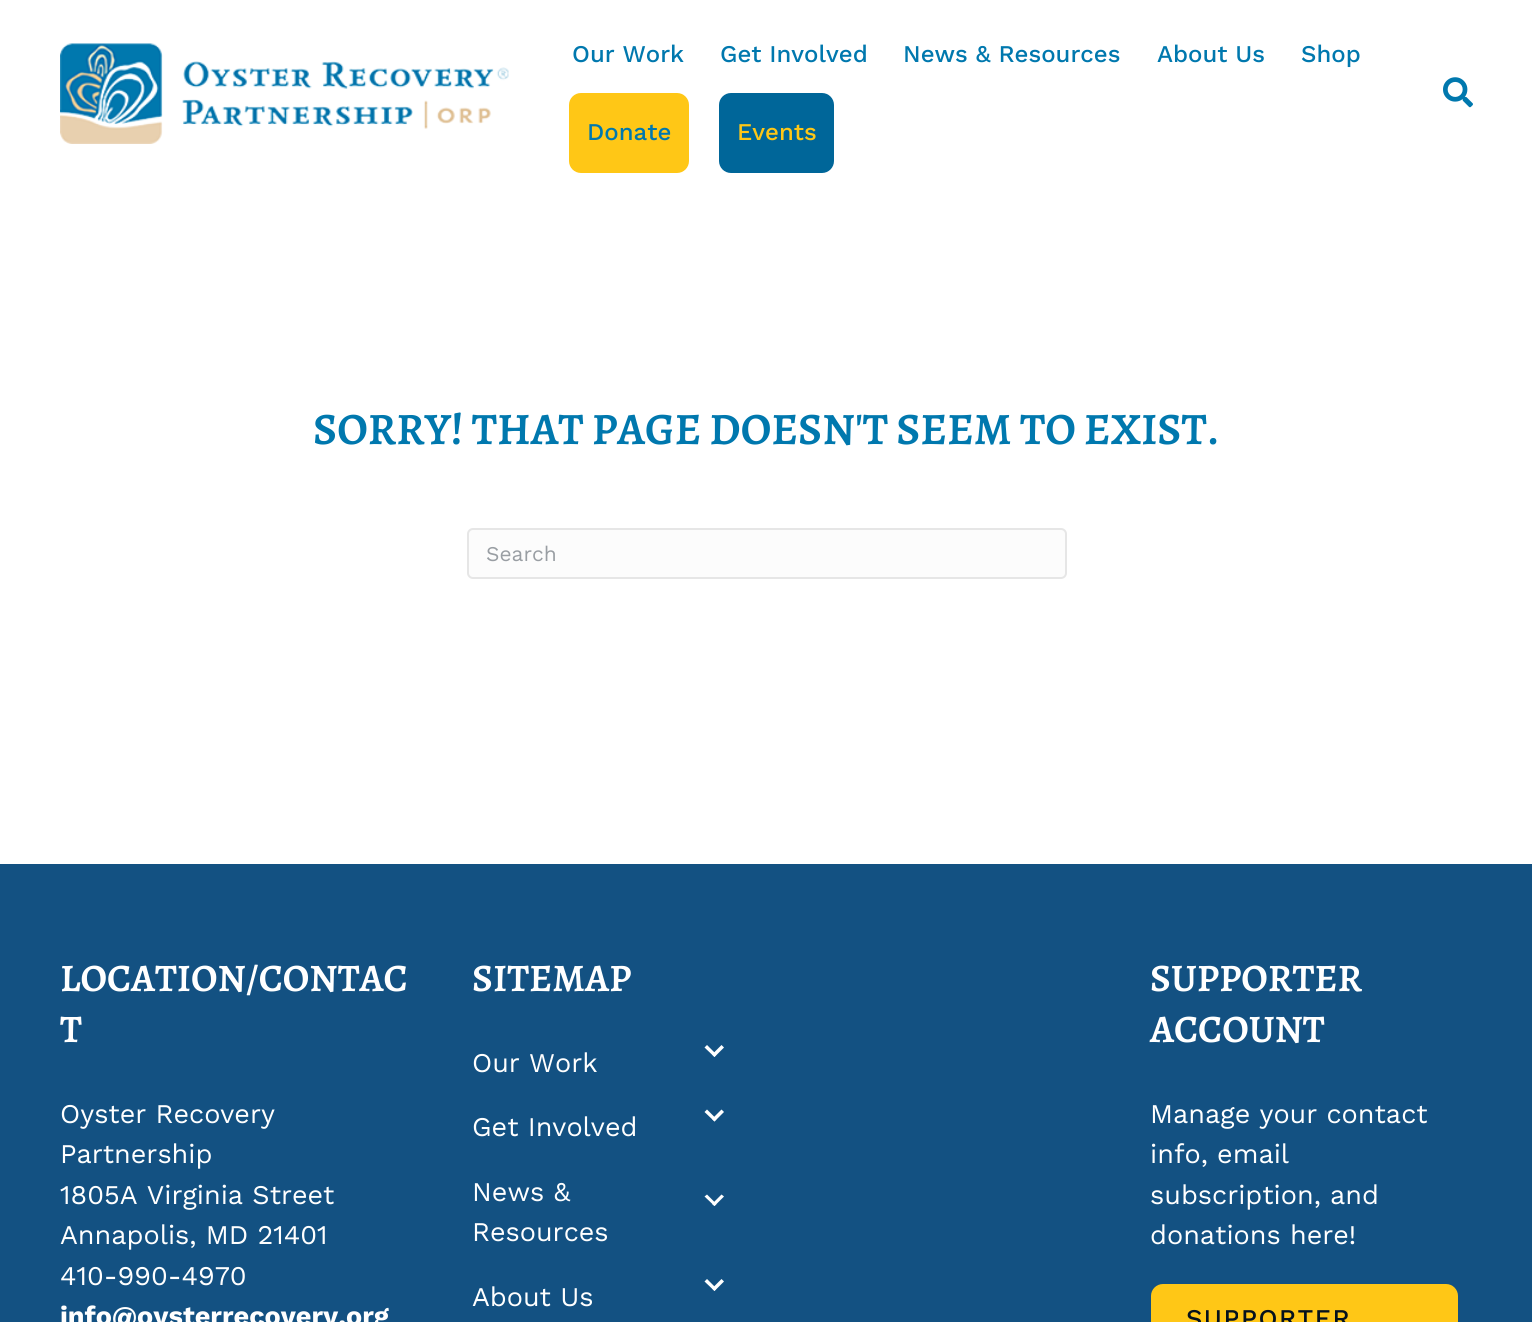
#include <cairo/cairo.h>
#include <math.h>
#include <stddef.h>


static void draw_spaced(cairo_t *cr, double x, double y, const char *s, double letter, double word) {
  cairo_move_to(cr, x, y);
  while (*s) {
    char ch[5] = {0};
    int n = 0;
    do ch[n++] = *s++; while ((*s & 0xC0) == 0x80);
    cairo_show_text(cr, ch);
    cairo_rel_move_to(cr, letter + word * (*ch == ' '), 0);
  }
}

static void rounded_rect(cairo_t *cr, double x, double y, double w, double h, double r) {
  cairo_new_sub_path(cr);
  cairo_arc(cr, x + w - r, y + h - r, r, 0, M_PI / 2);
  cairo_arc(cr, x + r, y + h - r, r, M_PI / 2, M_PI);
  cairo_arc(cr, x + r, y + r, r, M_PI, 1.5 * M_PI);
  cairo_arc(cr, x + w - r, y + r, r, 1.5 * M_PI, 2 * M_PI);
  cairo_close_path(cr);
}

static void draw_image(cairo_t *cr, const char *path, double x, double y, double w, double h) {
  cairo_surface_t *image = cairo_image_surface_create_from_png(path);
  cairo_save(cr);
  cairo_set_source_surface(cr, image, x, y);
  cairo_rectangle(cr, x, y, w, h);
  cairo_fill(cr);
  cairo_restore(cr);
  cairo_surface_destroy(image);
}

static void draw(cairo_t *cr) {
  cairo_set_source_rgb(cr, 1, 1, 1);
  cairo_paint(cr);
  draw_image(cr, "images/1.png", 60, 43, 449, 101);
  cairo_set_source_rgb(cr, 1, 199 / 255.0, 22 / 255.0);
  rounded_rect(cr, 569, 93, 120, 80, 12);
  cairo_fill(cr);
  cairo_set_source_rgb(cr, 0, 102 / 255.0, 153 / 255.0);
  rounded_rect(cr, 719, 93, 115, 80, 12);
  cairo_fill(cr);
  draw_image(cr, "images/2.png", 1443, 77, 30, 31);
  cairo_set_source_rgb(cr, 252 / 255.0, 252 / 255.0, 252 / 255.0);
  rounded_rect(cr, 468, 529, 598, 49, 5);
  cairo_fill_preserve(cr);
  cairo_set_source_rgb(cr, 230 / 255.0, 230 / 255.0, 230 / 255.0);
  cairo_stroke(cr);
  cairo_set_source_rgb(cr, 19 / 255.0, 81 / 255.0, 130 / 255.0);
  cairo_rectangle(cr, 0, 864, 1532, 458);
  cairo_fill(cr);
  cairo_set_source_rgb(cr, 1, 1, 1);
  cairo_new_path(cr);
  cairo_move_to(cr, 721.5, 1045);
  cairo_line_to(cr, 724, 1047.5);
  cairo_line_to(cr, 714.5, 1057);
  cairo_line_to(cr, 712, 1054.5);
  cairo_close_path(cr);
  cairo_fill(cr);
  cairo_new_path(cr);
  cairo_move_to(cr, 707, 1045);
  cairo_line_to(cr, 716.5, 1054.5);
  cairo_line_to(cr, 714.5, 1057);
  cairo_line_to(cr, 704.5, 1047.5);
  cairo_close_path(cr);
  cairo_fill(cr);
  cairo_new_path(cr);
  cairo_move_to(cr, 721.5, 1109.5);
  cairo_line_to(cr, 724, 1112);
  cairo_line_to(cr, 714.5, 1121.5);
  cairo_line_to(cr, 712, 1119);
  cairo_close_path(cr);
  cairo_fill(cr);
  cairo_new_path(cr);
  cairo_move_to(cr, 707, 1109.5);
  cairo_line_to(cr, 716.5, 1119);
  cairo_line_to(cr, 714.5, 1121.5);
  cairo_line_to(cr, 704.5, 1112);
  cairo_close_path(cr);
  cairo_fill(cr);
  cairo_new_path(cr);
  cairo_move_to(cr, 721.5, 1194.5);
  cairo_line_to(cr, 724, 1196.5);
  cairo_line_to(cr, 714.5, 1206);
  cairo_line_to(cr, 712, 1204);
  cairo_close_path(cr);
  cairo_fill(cr);
  cairo_new_path(cr);
  cairo_move_to(cr, 707, 1194.5);
  cairo_line_to(cr, 716.5, 1204);
  cairo_line_to(cr, 714.5, 1206);
  cairo_line_to(cr, 704.5, 1196.5);
  cairo_close_path(cr);
  cairo_fill(cr);
  cairo_new_path(cr);
  cairo_move_to(cr, 721.5, 1279);
  cairo_line_to(cr, 724, 1281.5);
  cairo_line_to(cr, 714.5, 1291);
  cairo_line_to(cr, 712, 1288.5);
  cairo_close_path(cr);
  cairo_fill(cr);
  cairo_new_path(cr);
  cairo_move_to(cr, 707, 1279);
  cairo_line_to(cr, 716.5, 1288.5);
  cairo_line_to(cr, 714.5, 1291);
  cairo_line_to(cr, 704.5, 1281.5);
  cairo_close_path(cr);
  cairo_fill(cr);
  cairo_set_source_rgb(cr, 1, 199 / 255.0, 22 / 255.0);
  rounded_rect(cr, 1151, 1284, 307, 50, 12);
  cairo_fill(cr);
  cairo_select_font_face(cr, "Work Sans Medium", CAIRO_FONT_SLANT_NORMAL, CAIRO_FONT_WEIGHT_NORMAL);
  cairo_set_font_size(cr, 24);
  cairo_set_source_rgb(cr, 0, 120 / 255.0, 174 / 255.0);
  cairo_move_to(cr, 572, 62);
  cairo_show_text(cr, "Our Work");
  cairo_move_to(cr, 720, 62);
  cairo_show_text(cr, "Get Involved");
  cairo_move_to(cr, 903, 62);
  cairo_show_text(cr, "News & Resources");
  cairo_move_to(cr, 1157, 62);
  cairo_show_text(cr, "About Us");
  cairo_move_to(cr, 1301, 62);
  cairo_show_text(cr, "Shop");
  cairo_move_to(cr, 587, 140);
  cairo_show_text(cr, "Donate");
  cairo_set_source_rgb(cr, 1, 199 / 255.0, 22 / 255.0);
  cairo_move_to(cr, 737, 140);
  cairo_show_text(cr, "Events");
  cairo_select_font_face(cr, "Alegreya SemiBold", CAIRO_FONT_SLANT_NORMAL, CAIRO_FONT_WEIGHT_NORMAL);
  cairo_set_font_size(cr, 45);
  cairo_set_source_rgb(cr, 0, 120 / 255.0, 174 / 255.0);
  cairo_move_to(cr, 313, 444);
  cairo_show_text(cr, "SORRY! THAT PAGE DOESN'T SEEM TO EXIST.");
  cairo_select_font_face(cr, "Work Sans", CAIRO_FONT_SLANT_NORMAL, CAIRO_FONT_WEIGHT_NORMAL);
  cairo_set_font_size(cr, 21);
  cairo_set_source_rgb(cr, 153 / 255.0, 158 / 255.0, 163 / 255.0);
  cairo_move_to(cr, 486, 561);
  cairo_show_text(cr, "Search");
  cairo_select_font_face(cr, "Alegreya SemiBold", CAIRO_FONT_SLANT_NORMAL, CAIRO_FONT_WEIGHT_NORMAL);
  cairo_set_font_size(cr, 39);
  cairo_set_source_rgb(cr, 1, 1, 1);
  cairo_move_to(cr, 60, 991);
  cairo_show_text(cr, "LOCATION/CONTAC");
  cairo_move_to(cr, 60, 1042);
  cairo_show_text(cr, "T");
  cairo_select_font_face(cr, "Work Sans", CAIRO_FONT_SLANT_NORMAL, CAIRO_FONT_WEIGHT_NORMAL);
  cairo_set_font_size(cr, 27);
  cairo_move_to(cr, 60, 1123);
  cairo_show_text(cr, "Oyster Recovery");
  cairo_move_to(cr, 60, 1163);
  cairo_show_text(cr, "Partnership");
  cairo_move_to(cr, 60, 1204);
  cairo_show_text(cr, "1805A Virginia Street");
  cairo_move_to(cr, 60, 1244);
  cairo_show_text(cr, "Annapolis, MD 21401");
  cairo_move_to(cr, 60, 1285);
  cairo_show_text(cr, "410-990-4970");
  cairo_select_font_face(cr, "Work Sans", CAIRO_FONT_SLANT_NORMAL, CAIRO_FONT_WEIGHT_BOLD);
  cairo_move_to(cr, 60, 1325);
  cairo_show_text(cr, "info@oysterrecovery.org");
  cairo_select_font_face(cr, "Alegreya SemiBold", CAIRO_FONT_SLANT_NORMAL, CAIRO_FONT_WEIGHT_NORMAL);
  cairo_set_font_size(cr, 39);
  cairo_move_to(cr, 472, 991);
  cairo_show_text(cr, "SITEMAP");
  cairo_select_font_face(cr, "Work Sans", CAIRO_FONT_SLANT_NORMAL, CAIRO_FONT_WEIGHT_NORMAL);
  cairo_set_font_size(cr, 27);
  cairo_move_to(cr, 472, 1072);
  cairo_show_text(cr, "Our Work");
  cairo_move_to(cr, 472, 1136);
  cairo_show_text(cr, "Get Involved");
  cairo_move_to(cr, 472, 1201);
  cairo_show_text(cr, "News &");
  cairo_move_to(cr, 472, 1241);
  cairo_show_text(cr, "Resources");
  cairo_move_to(cr, 472, 1306);
  cairo_show_text(cr, "About Us");
  cairo_select_font_face(cr, "Alegreya SemiBold", CAIRO_FONT_SLANT_NORMAL, CAIRO_FONT_WEIGHT_NORMAL);
  cairo_set_font_size(cr, 39);
  cairo_move_to(cr, 1150, 991);
  cairo_show_text(cr, "SUPPORTER");
  cairo_move_to(cr, 1150, 1042);
  cairo_show_text(cr, "ACCOUNT");
  cairo_select_font_face(cr, "Work Sans", CAIRO_FONT_SLANT_NORMAL, CAIRO_FONT_WEIGHT_NORMAL);
  cairo_set_font_size(cr, 27);
  cairo_move_to(cr, 1150, 1123);
  cairo_show_text(cr, "Manage your contact");
  cairo_move_to(cr, 1150, 1163);
  cairo_show_text(cr, "info, email");
  cairo_move_to(cr, 1150, 1204);
  cairo_show_text(cr, "subscription, and");
  cairo_move_to(cr, 1150, 1244);
  cairo_show_text(cr, "donations here!");
  cairo_select_font_face(cr, "Work Sans Medium", CAIRO_FONT_SLANT_NORMAL, CAIRO_FONT_WEIGHT_NORMAL);
  cairo_set_font_size(cr, 25.5);
  cairo_set_source_rgb(cr, 5 / 255.0, 18 / 255.0, 29 / 255.0);
  draw_spaced(cr, 1186, 1327, "SUPPORTER", 1.5, 0);
}

int main(void) {
  cairo_surface_t *surface = cairo_image_surface_create(CAIRO_FORMAT_RGB24, 1532, 1322);
  cairo_t *cr = cairo_create(surface);
  cairo_font_options_t *options = cairo_font_options_create();
  cairo_font_options_set_hint_metrics(options, CAIRO_HINT_METRICS_OFF);
  cairo_font_options_set_hint_style(options, CAIRO_HINT_STYLE_NONE);
  cairo_set_font_options(cr, options);
  cairo_set_miter_limit(cr, 4);
  draw(cr);
  cairo_surface_write_to_png(surface, "out.png");
  cairo_font_options_destroy(options);
  cairo_destroy(cr);
  cairo_surface_destroy(surface);
  return 0;
}
